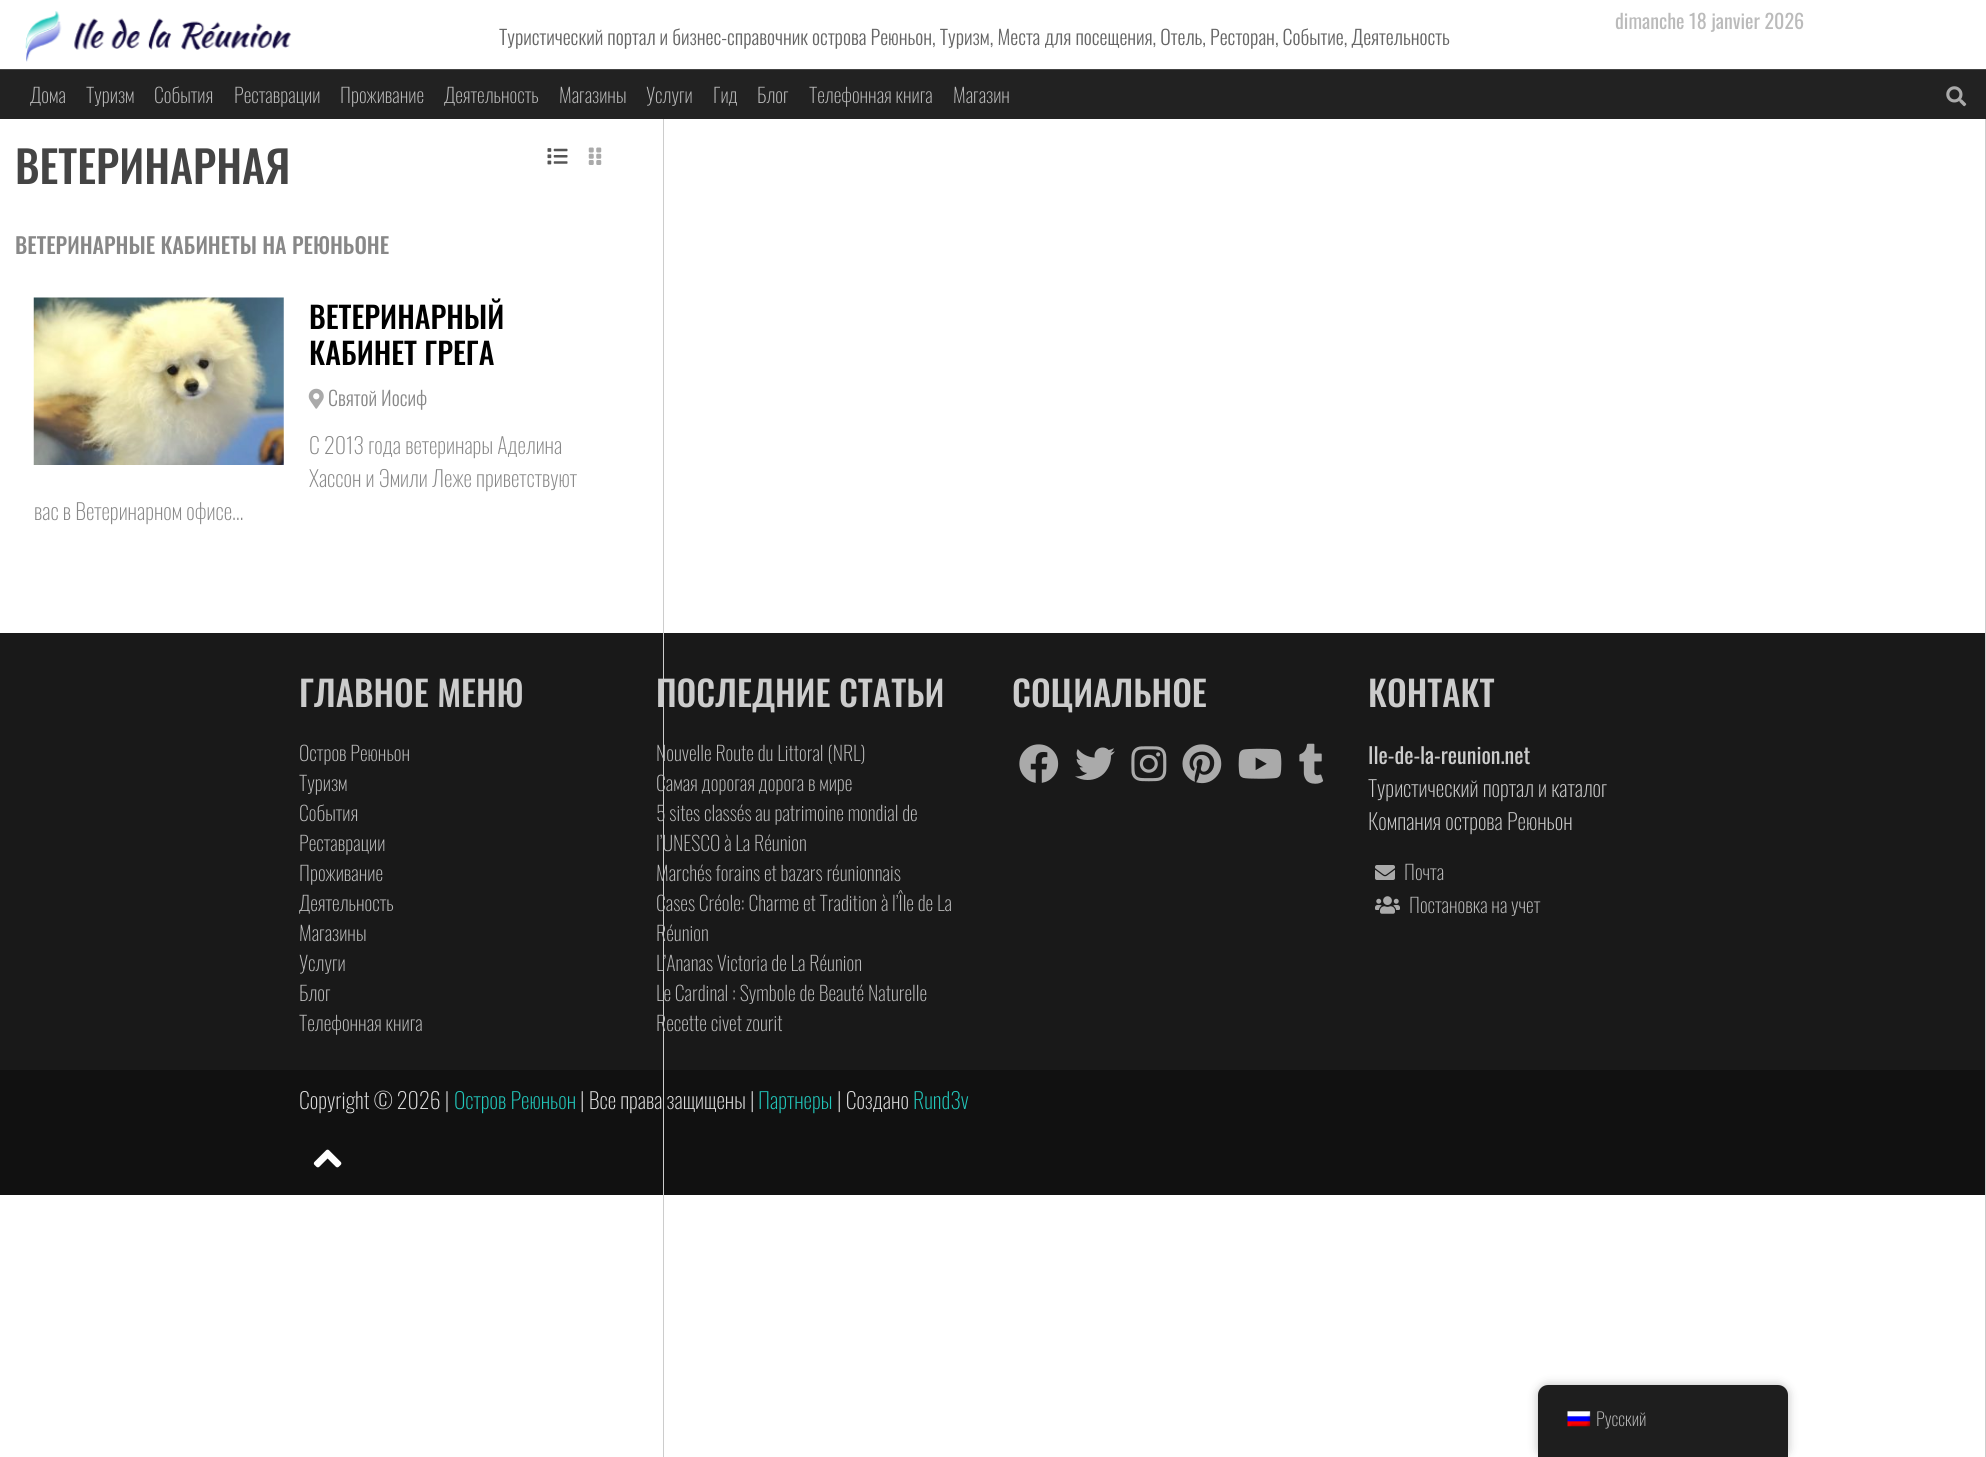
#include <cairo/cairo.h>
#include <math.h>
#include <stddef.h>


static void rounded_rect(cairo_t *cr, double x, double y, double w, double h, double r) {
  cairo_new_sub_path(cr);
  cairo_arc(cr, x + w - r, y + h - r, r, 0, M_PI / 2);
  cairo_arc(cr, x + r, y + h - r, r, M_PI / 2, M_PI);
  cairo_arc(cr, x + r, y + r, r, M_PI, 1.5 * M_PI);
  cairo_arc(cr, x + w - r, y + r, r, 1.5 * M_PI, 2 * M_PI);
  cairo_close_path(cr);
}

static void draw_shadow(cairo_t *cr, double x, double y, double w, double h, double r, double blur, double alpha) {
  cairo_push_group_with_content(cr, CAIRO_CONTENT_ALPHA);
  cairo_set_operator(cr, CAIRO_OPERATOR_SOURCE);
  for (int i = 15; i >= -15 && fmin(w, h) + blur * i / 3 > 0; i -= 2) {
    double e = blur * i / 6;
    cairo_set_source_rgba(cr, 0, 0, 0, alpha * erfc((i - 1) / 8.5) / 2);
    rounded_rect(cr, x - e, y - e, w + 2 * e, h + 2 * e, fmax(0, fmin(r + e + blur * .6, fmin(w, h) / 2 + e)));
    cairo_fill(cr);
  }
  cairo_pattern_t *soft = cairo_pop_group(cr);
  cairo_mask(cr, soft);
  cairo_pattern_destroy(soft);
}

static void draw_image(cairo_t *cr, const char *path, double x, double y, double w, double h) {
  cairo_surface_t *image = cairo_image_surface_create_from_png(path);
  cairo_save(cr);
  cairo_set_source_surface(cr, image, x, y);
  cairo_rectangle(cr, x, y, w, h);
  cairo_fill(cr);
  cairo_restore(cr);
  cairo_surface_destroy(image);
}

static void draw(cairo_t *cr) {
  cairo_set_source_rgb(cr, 1, 1, 1);
  cairo_paint(cr);
  draw_image(cr, "images/1.png", 25, 11, 267, 51);
  draw_image(cr, "images/3.png", 547, 148, 21, 17);
  draw_image(cr, "images/4.png", 588, 147, 14, 18);
  draw_image(cr, "images/5.png", 33, 297, 251, 168);
  draw_image(cr, "images/6.png", 308, 388, 16, 21);
  cairo_set_source_rgb(cr, 25 / 255.0, 25 / 255.0, 25 / 255.0);
  cairo_rectangle(cr, 0, 633, 1985, 437);
  cairo_fill(cr);
  cairo_set_source_rgb(cr, 17 / 255.0, 17 / 255.0, 17 / 255.0);
  cairo_rectangle(cr, 0, 1070, 1985, 125);
  cairo_fill(cr);
  draw_image(cr, "images/15.png", 313, 1149, 29, 19);
  cairo_select_font_face(cr, "Oswald Medium", CAIRO_FONT_SLANT_NORMAL, CAIRO_FONT_WEIGHT_NORMAL);
  cairo_set_font_size(cr, 44);
  cairo_set_source_rgb(cr, 68 / 255.0, 68 / 255.0, 68 / 255.0);
  cairo_move_to(cr, 15, 184);
  cairo_show_text(cr, "ВЕТЕРИНАРНАЯ");
  cairo_set_font_size(cr, 22);
  cairo_set_source_rgb(cr, 136 / 255.0, 136 / 255.0, 136 / 255.0);
  cairo_move_to(cr, 15, 254);
  cairo_show_text(cr, "ВЕТЕРИНАРНЫЕ КАБИНЕТЫ НА РЕЮНЬОНЕ");
  cairo_set_font_size(cr, 30);
  cairo_set_source_rgb(cr, 0, 0, 0);
  cairo_move_to(cr, 309, 329);
  cairo_show_text(cr, "ВЕТЕРИНАРНЫЙ");
  cairo_move_to(cr, 309, 365);
  cairo_show_text(cr, "КАБИНЕТ ГРЕГА");
  cairo_select_font_face(cr, "Oswald Light", CAIRO_FONT_SLANT_NORMAL, CAIRO_FONT_WEIGHT_NORMAL);
  cairo_set_font_size(cr, 20);
  cairo_set_source_rgb(cr, 136 / 255.0, 136 / 255.0, 136 / 255.0);
  cairo_move_to(cr, 328, 406);
  cairo_show_text(cr, "Святой Иосиф");
  cairo_select_font_face(cr, "Oswald ExtraLight", CAIRO_FONT_SLANT_NORMAL, CAIRO_FONT_WEIGHT_NORMAL);
  cairo_set_font_size(cr, 22);
  cairo_move_to(cr, 309, 454);
  cairo_show_text(cr, "С 2013 года ветеринары Аделина");
  cairo_move_to(cr, 309, 487);
  cairo_show_text(cr, "Хассон и Эмили Леже приветствуют");
  cairo_move_to(cr, 34, 520);
  cairo_show_text(cr, "вас в Ветеринарном офисе…");
  cairo_select_font_face(cr, "Oswald Medium", CAIRO_FONT_SLANT_NORMAL, CAIRO_FONT_WEIGHT_NORMAL);
  cairo_set_font_size(cr, 35);
  cairo_set_source_rgb(cr, 204 / 255.0, 204 / 255.0, 204 / 255.0);
  cairo_move_to(cr, 299, 707);
  cairo_show_text(cr, "ГЛАВНОЕ МЕНЮ");
  cairo_select_font_face(cr, "Oswald ExtraLight", CAIRO_FONT_SLANT_NORMAL, CAIRO_FONT_WEIGHT_NORMAL);
  cairo_set_font_size(cr, 20);
  cairo_set_source_rgb(cr, 187 / 255.0, 187 / 255.0, 187 / 255.0);
  cairo_move_to(cr, 299, 761);
  cairo_show_text(cr, "Остров Реюньон");
  cairo_move_to(cr, 299, 791);
  cairo_show_text(cr, "Туризм");
  cairo_move_to(cr, 299, 821);
  cairo_show_text(cr, "События");
  cairo_move_to(cr, 299, 851);
  cairo_show_text(cr, "Реставрации");
  cairo_move_to(cr, 299, 881);
  cairo_show_text(cr, "Проживание");
  cairo_move_to(cr, 299, 911);
  cairo_show_text(cr, "Деятельность");
  cairo_move_to(cr, 299, 941);
  cairo_show_text(cr, "Магазины");
  cairo_move_to(cr, 299, 971);
  cairo_show_text(cr, "Услуги");
  cairo_move_to(cr, 299, 1001);
  cairo_show_text(cr, "Блог");
  cairo_move_to(cr, 299, 1031);
  cairo_show_text(cr, "Телефонная книга");
  cairo_set_font_size(cr, 22);
  cairo_set_source_rgb(cr, 221 / 255.0, 221 / 255.0, 221 / 255.0);
  cairo_move_to(cr, 299, 1109);
  cairo_show_text(cr, "Copyright © 2026 |");
  cairo_set_source_rgb(cr, 33 / 255.0, 199 / 255.0, 187 / 255.0);
  cairo_move_to(cr, 454, 1109);
  cairo_show_text(cr, "Остров Реюньон");
  cairo_set_source_rgb(cr, 221 / 255.0, 221 / 255.0, 221 / 255.0);
  cairo_move_to(cr, 580, 1109);
  cairo_show_text(cr, "| Все права защищены |");
  cairo_rectangle(cr, 663.5, 0.5, 1322, 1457);
  cairo_set_source_rgb(cr, 204 / 255.0, 204 / 255.0, 204 / 255.0);
  cairo_set_line_width(cr, 1);
  cairo_stroke(cr);
  cairo_set_source_rgb(cr, 34 / 255.0, 34 / 255.0, 34 / 255.0);
  cairo_rectangle(cr, 0, 70, 1986, 49);
  cairo_fill(cr);
  cairo_set_font_size(cr, 20);
  cairo_set_source_rgb(cr, 187 / 255.0, 187 / 255.0, 187 / 255.0);
  cairo_move_to(cr, 953, 103);
  cairo_show_text(cr, "Магазин");
  cairo_move_to(cr, 809, 103);
  cairo_show_text(cr, "Телефонная книга");
  cairo_move_to(cr, 757, 103);
  cairo_show_text(cr, "Блог");
  cairo_move_to(cr, 713, 103);
  cairo_show_text(cr, "Гид");
  cairo_move_to(cr, 646, 103);
  cairo_show_text(cr, "Услуги");
  cairo_move_to(cr, 559, 103);
  cairo_show_text(cr, "Магазины");
  cairo_move_to(cr, 444, 103);
  cairo_show_text(cr, "Деятельность");
  cairo_move_to(cr, 340, 103);
  cairo_show_text(cr, "Проживание");
  cairo_move_to(cr, 234, 103);
  cairo_show_text(cr, "Реставрации");
  cairo_move_to(cr, 154, 103);
  cairo_show_text(cr, "События");
  cairo_move_to(cr, 86, 103);
  cairo_show_text(cr, "Туризм");
  cairo_move_to(cr, 30, 103);
  cairo_show_text(cr, "Дома");
  draw_image(cr, "images/2.png", 1946, 86, 21, 21);
  cairo_set_source_rgb(cr, 68 / 255.0, 68 / 255.0, 68 / 255.0);
  cairo_rectangle(cr, 0, 69, 1986, 1);
  cairo_fill(cr);
  cairo_set_source_rgb(cr, 1, 1, 1);
  cairo_rectangle(cr, 663, 0, 1323, 69);
  cairo_fill(cr);
  cairo_select_font_face(cr, "Oswald", CAIRO_FONT_SLANT_NORMAL, CAIRO_FONT_WEIGHT_NORMAL);
  cairo_set_source_rgb(cr, 187 / 255.0, 187 / 255.0, 187 / 255.0);
  cairo_move_to(cr, 1615, 29);
  cairo_show_text(cr, "dimanche 18 janvier 2026");
  cairo_select_font_face(cr, "Oswald Light", CAIRO_FONT_SLANT_NORMAL, CAIRO_FONT_WEIGHT_NORMAL);
  cairo_set_source_rgb(cr, 102 / 255.0, 102 / 255.0, 102 / 255.0);
  cairo_move_to(cr, 499, 45);
  cairo_show_text(cr, "Туристический портал и бизнес-справочник острова Реюньон, Туризм, Места для посещения, Отель, Ресторан, Событие, Деятельность");
  cairo_select_font_face(cr, "Oswald ExtraLight", CAIRO_FONT_SLANT_NORMAL, CAIRO_FONT_WEIGHT_NORMAL);
  cairo_set_source_rgb(cr, 187 / 255.0, 187 / 255.0, 187 / 255.0);
  cairo_move_to(cr, 1409, 913);
  cairo_show_text(cr, "Постановка на учет");
  draw_image(cr, "images/14.png", 1375, 896, 25, 18);
  cairo_move_to(cr, 1404, 880);
  cairo_show_text(cr, "Почта");
  draw_image(cr, "images/13.png", 1375, 865, 20, 15);
  cairo_set_font_size(cr, 22);
  cairo_set_source_rgb(cr, 204 / 255.0, 204 / 255.0, 204 / 255.0);
  cairo_move_to(cr, 1368, 830);
  cairo_show_text(cr, "Компания острова Реюньон");
  cairo_move_to(cr, 1368, 797);
  cairo_show_text(cr, "Туристический портал и каталог");
  cairo_select_font_face(cr, "Oswald", CAIRO_FONT_SLANT_NORMAL, CAIRO_FONT_WEIGHT_NORMAL);
  cairo_move_to(cr, 1368, 764);
  cairo_show_text(cr, "Ile-de-la-reunion.net");
  cairo_select_font_face(cr, "Oswald Medium", CAIRO_FONT_SLANT_NORMAL, CAIRO_FONT_WEIGHT_NORMAL);
  cairo_set_font_size(cr, 35);
  cairo_move_to(cr, 1368, 707);
  cairo_show_text(cr, "КОНТАКТ");
  draw_image(cr, "images/12.png", 1299, 743, 25, 41);
  draw_image(cr, "images/11.png", 1238, 748, 44, 31);
  draw_image(cr, "images/10.png", 1182, 744, 40, 40);
  draw_image(cr, "images/9.png", 1131, 746, 36, 36);
  draw_image(cr, "images/8.png", 1075, 747, 40, 33);
  draw_image(cr, "images/7.png", 1019, 744, 40, 39);
  cairo_move_to(cr, 1012, 707);
  cairo_show_text(cr, "СОЦИАЛЬНОЕ");
  cairo_select_font_face(cr, "Oswald ExtraLight", CAIRO_FONT_SLANT_NORMAL, CAIRO_FONT_WEIGHT_NORMAL);
  cairo_set_font_size(cr, 20);
  cairo_set_source_rgb(cr, 187 / 255.0, 187 / 255.0, 187 / 255.0);
  cairo_move_to(cr, 656, 1031);
  cairo_show_text(cr, "Recette civet zourit");
  cairo_move_to(cr, 656, 1001);
  cairo_show_text(cr, "Le Cardinal : Symbole de Beauté Naturelle");
  cairo_move_to(cr, 656, 971);
  cairo_show_text(cr, "L’Ananas Victoria de La Réunion");
  cairo_move_to(cr, 656, 941);
  cairo_show_text(cr, "Réunion");
  cairo_move_to(cr, 656, 911);
  cairo_show_text(cr, "Cases Créole: Charme et Tradition à l’Île de La");
  cairo_move_to(cr, 656, 881);
  cairo_show_text(cr, "Marchés forains et bazars réunionnais");
  cairo_move_to(cr, 656, 851);
  cairo_show_text(cr, "l’UNESCO à La Réunion");
  cairo_move_to(cr, 656, 821);
  cairo_show_text(cr, "5 sites classés au patrimoine mondial de");
  cairo_move_to(cr, 656, 791);
  cairo_show_text(cr, "Самая дорогая дорога в мире");
  cairo_move_to(cr, 656, 761);
  cairo_show_text(cr, "Nouvelle Route du Littoral (NRL)");
  cairo_select_font_face(cr, "Oswald Medium", CAIRO_FONT_SLANT_NORMAL, CAIRO_FONT_WEIGHT_NORMAL);
  cairo_set_font_size(cr, 35);
  cairo_set_source_rgb(cr, 204 / 255.0, 204 / 255.0, 204 / 255.0);
  cairo_move_to(cr, 656, 707);
  cairo_show_text(cr, "ПОСЛЕДНИЕ СТАТЬИ");
  cairo_select_font_face(cr, "Oswald ExtraLight", CAIRO_FONT_SLANT_NORMAL, CAIRO_FONT_WEIGHT_NORMAL);
  cairo_set_font_size(cr, 22);
  cairo_set_source_rgb(cr, 33 / 255.0, 199 / 255.0, 187 / 255.0);
  cairo_move_to(cr, 758, 1109);
  cairo_show_text(cr, "Партнеры");
  cairo_set_source_rgb(cr, 221 / 255.0, 221 / 255.0, 221 / 255.0);
  cairo_move_to(cr, 837, 1109);
  cairo_show_text(cr, "| Создано");
  cairo_set_source_rgb(cr, 33 / 255.0, 199 / 255.0, 187 / 255.0);
  cairo_move_to(cr, 913, 1109);
  cairo_show_text(cr, "Rund3v");
  cairo_set_source_rgb(cr, 0, 0, 0);
  draw_shadow(cr, 1538, 1385, 250, 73, 10, 5, 0.25);
  cairo_set_source_rgb(cr, 30 / 255.0, 30 / 255.0, 30 / 255.0);
  cairo_new_path(cr);
  cairo_move_to(cr, 1548, 1385);
  cairo_line_to(cr, 1778, 1385);
  cairo_curve_to(cr, 1783.5, 1385, 1788, 1389.5, 1788, 1395);
  cairo_line_to(cr, 1788, 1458);
  cairo_line_to(cr, 1538, 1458);
  cairo_line_to(cr, 1538, 1395);
  cairo_curve_to(cr, 1538, 1389.5, 1542.5, 1385, 1548, 1385);
  cairo_close_path(cr);
  cairo_fill(cr);
  draw_image(cr, "images/16.png", 1567, 1411, 24, 16);
  cairo_set_font_size(cr, 18);
  cairo_set_source_rgb(cr, 187 / 255.0, 187 / 255.0, 187 / 255.0);
  cairo_move_to(cr, 1596, 1426);
  cairo_show_text(cr, "Русский");
}

int main(void) {
  cairo_surface_t *surface = cairo_image_surface_create(CAIRO_FORMAT_RGB24, 1986, 1457);
  cairo_t *cr = cairo_create(surface);
  cairo_font_options_t *options = cairo_font_options_create();
  cairo_font_options_set_hint_metrics(options, CAIRO_HINT_METRICS_OFF);
  cairo_font_options_set_hint_style(options, CAIRO_HINT_STYLE_NONE);
  cairo_set_font_options(cr, options);
  cairo_set_miter_limit(cr, 4);
  draw(cr);
  cairo_surface_write_to_png(surface, "out.png");
  cairo_font_options_destroy(options);
  cairo_destroy(cr);
  cairo_surface_destroy(surface);
  return 0;
}
